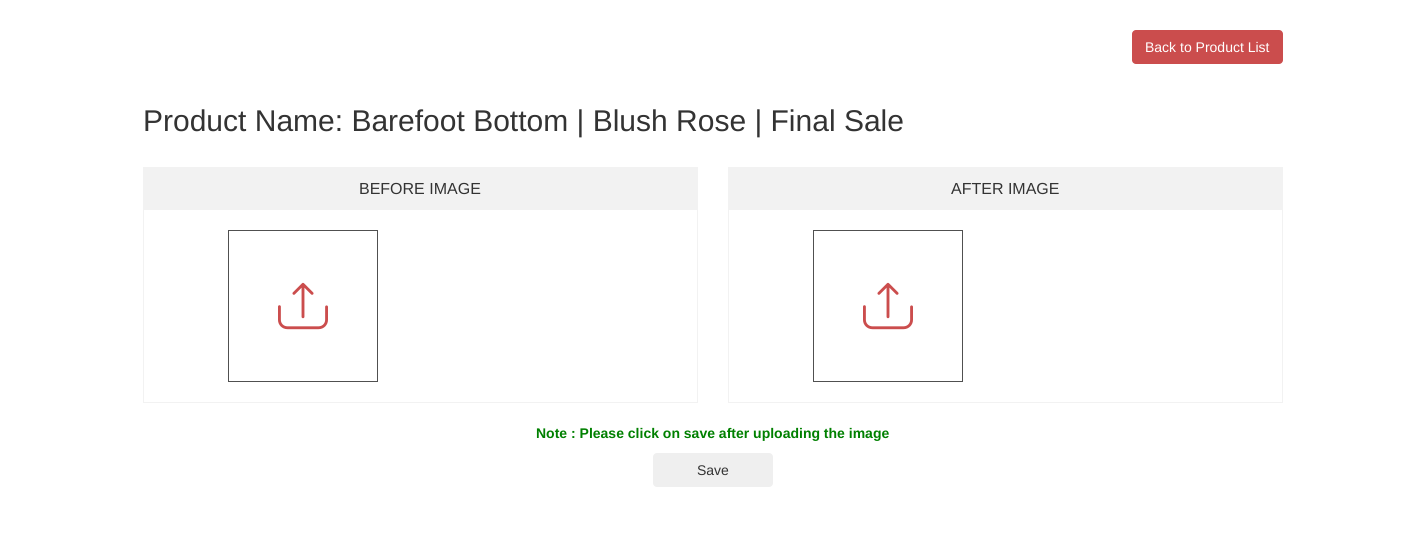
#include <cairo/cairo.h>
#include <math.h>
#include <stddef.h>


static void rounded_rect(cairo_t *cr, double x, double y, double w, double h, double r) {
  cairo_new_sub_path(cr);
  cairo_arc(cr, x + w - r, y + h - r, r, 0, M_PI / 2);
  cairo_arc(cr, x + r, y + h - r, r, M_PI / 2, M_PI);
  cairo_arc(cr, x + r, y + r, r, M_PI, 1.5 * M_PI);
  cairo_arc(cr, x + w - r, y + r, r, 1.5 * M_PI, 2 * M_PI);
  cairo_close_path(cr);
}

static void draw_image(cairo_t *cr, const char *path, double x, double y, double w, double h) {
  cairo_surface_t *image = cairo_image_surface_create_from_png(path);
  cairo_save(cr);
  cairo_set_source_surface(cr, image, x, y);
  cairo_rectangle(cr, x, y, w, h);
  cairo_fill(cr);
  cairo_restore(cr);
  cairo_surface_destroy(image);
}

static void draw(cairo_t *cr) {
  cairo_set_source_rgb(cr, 1, 1, 1);
  cairo_paint(cr);
  cairo_set_source_rgb(cr, 203 / 255.0, 77 / 255.0, 77 / 255.0);
  rounded_rect(cr, 1132, 30, 151, 34, 4);
  cairo_fill(cr);
  cairo_rectangle(cr, 143.5, 167.5, 554, 235);
  cairo_set_source_rgb(cr, 242 / 255.0, 242 / 255.0, 242 / 255.0);
  cairo_set_line_width(cr, 1);
  cairo_stroke(cr);
  cairo_rectangle(cr, 144, 168, 553, 42);
  cairo_fill(cr);
  cairo_rectangle(cr, 228.5, 230.5, 149, 151);
  cairo_set_source_rgb(cr, 80 / 255.0, 80 / 255.0, 80 / 255.0);
  cairo_stroke(cr);
  draw_image(cr, "images/1.png", 278, 282, 50, 48);
  cairo_rectangle(cr, 728.5, 167.5, 554, 235);
  cairo_set_source_rgb(cr, 242 / 255.0, 242 / 255.0, 242 / 255.0);
  cairo_stroke(cr);
  cairo_rectangle(cr, 729, 168, 553, 42);
  cairo_fill(cr);
  cairo_rectangle(cr, 813.5, 230.5, 149, 151);
  cairo_set_source_rgb(cr, 80 / 255.0, 80 / 255.0, 80 / 255.0);
  cairo_stroke(cr);
  draw_image(cr, "images/1.png", 863, 282, 50, 48);
  cairo_set_source_rgb(cr, 239 / 255.0, 239 / 255.0, 239 / 255.0);
  rounded_rect(cr, 653, 453, 120, 34, 4);
  cairo_fill(cr);
  cairo_select_font_face(cr, "Liberation Sans", CAIRO_FONT_SLANT_NORMAL, CAIRO_FONT_WEIGHT_NORMAL);
  cairo_set_font_size(cr, 14);
  cairo_set_source_rgb(cr, 1, 1, 1);
  cairo_move_to(cr, 1145, 52);
  cairo_show_text(cr, "Back to Product List");
  cairo_set_font_size(cr, 30);
  cairo_set_source_rgb(cr, 51 / 255.0, 51 / 255.0, 51 / 255.0);
  cairo_move_to(cr, 143, 131);
  cairo_show_text(cr, "Product Name: Barefoot Bottom | Blush Rose | Final Sale");
  cairo_set_font_size(cr, 16);
  cairo_move_to(cr, 359, 194);
  cairo_show_text(cr, "BEFORE IMAGE");
  cairo_move_to(cr, 951, 194);
  cairo_show_text(cr, "AFTER IMAGE");
  cairo_select_font_face(cr, "Liberation Sans", CAIRO_FONT_SLANT_NORMAL, CAIRO_FONT_WEIGHT_BOLD);
  cairo_set_font_size(cr, 14);
  cairo_set_source_rgb(cr, 0, 128 / 255.0, 0);
  cairo_move_to(cr, 536, 438);
  cairo_show_text(cr, "Note : Please click on save after uploading the image");
  cairo_select_font_face(cr, "Liberation Sans", CAIRO_FONT_SLANT_NORMAL, CAIRO_FONT_WEIGHT_NORMAL);
  cairo_set_source_rgb(cr, 51 / 255.0, 51 / 255.0, 51 / 255.0);
  cairo_move_to(cr, 697, 475);
  cairo_show_text(cr, "Save");
}

int main(void) {
  cairo_surface_t *surface = cairo_image_surface_create(CAIRO_FORMAT_RGB24, 1425, 560);
  cairo_t *cr = cairo_create(surface);
  cairo_font_options_t *options = cairo_font_options_create();
  cairo_font_options_set_hint_metrics(options, CAIRO_HINT_METRICS_OFF);
  cairo_font_options_set_hint_style(options, CAIRO_HINT_STYLE_NONE);
  cairo_set_font_options(cr, options);
  cairo_set_miter_limit(cr, 4);
  draw(cr);
  cairo_surface_write_to_png(surface, "out.png");
  cairo_font_options_destroy(options);
  cairo_destroy(cr);
  cairo_surface_destroy(surface);
  return 0;
}
